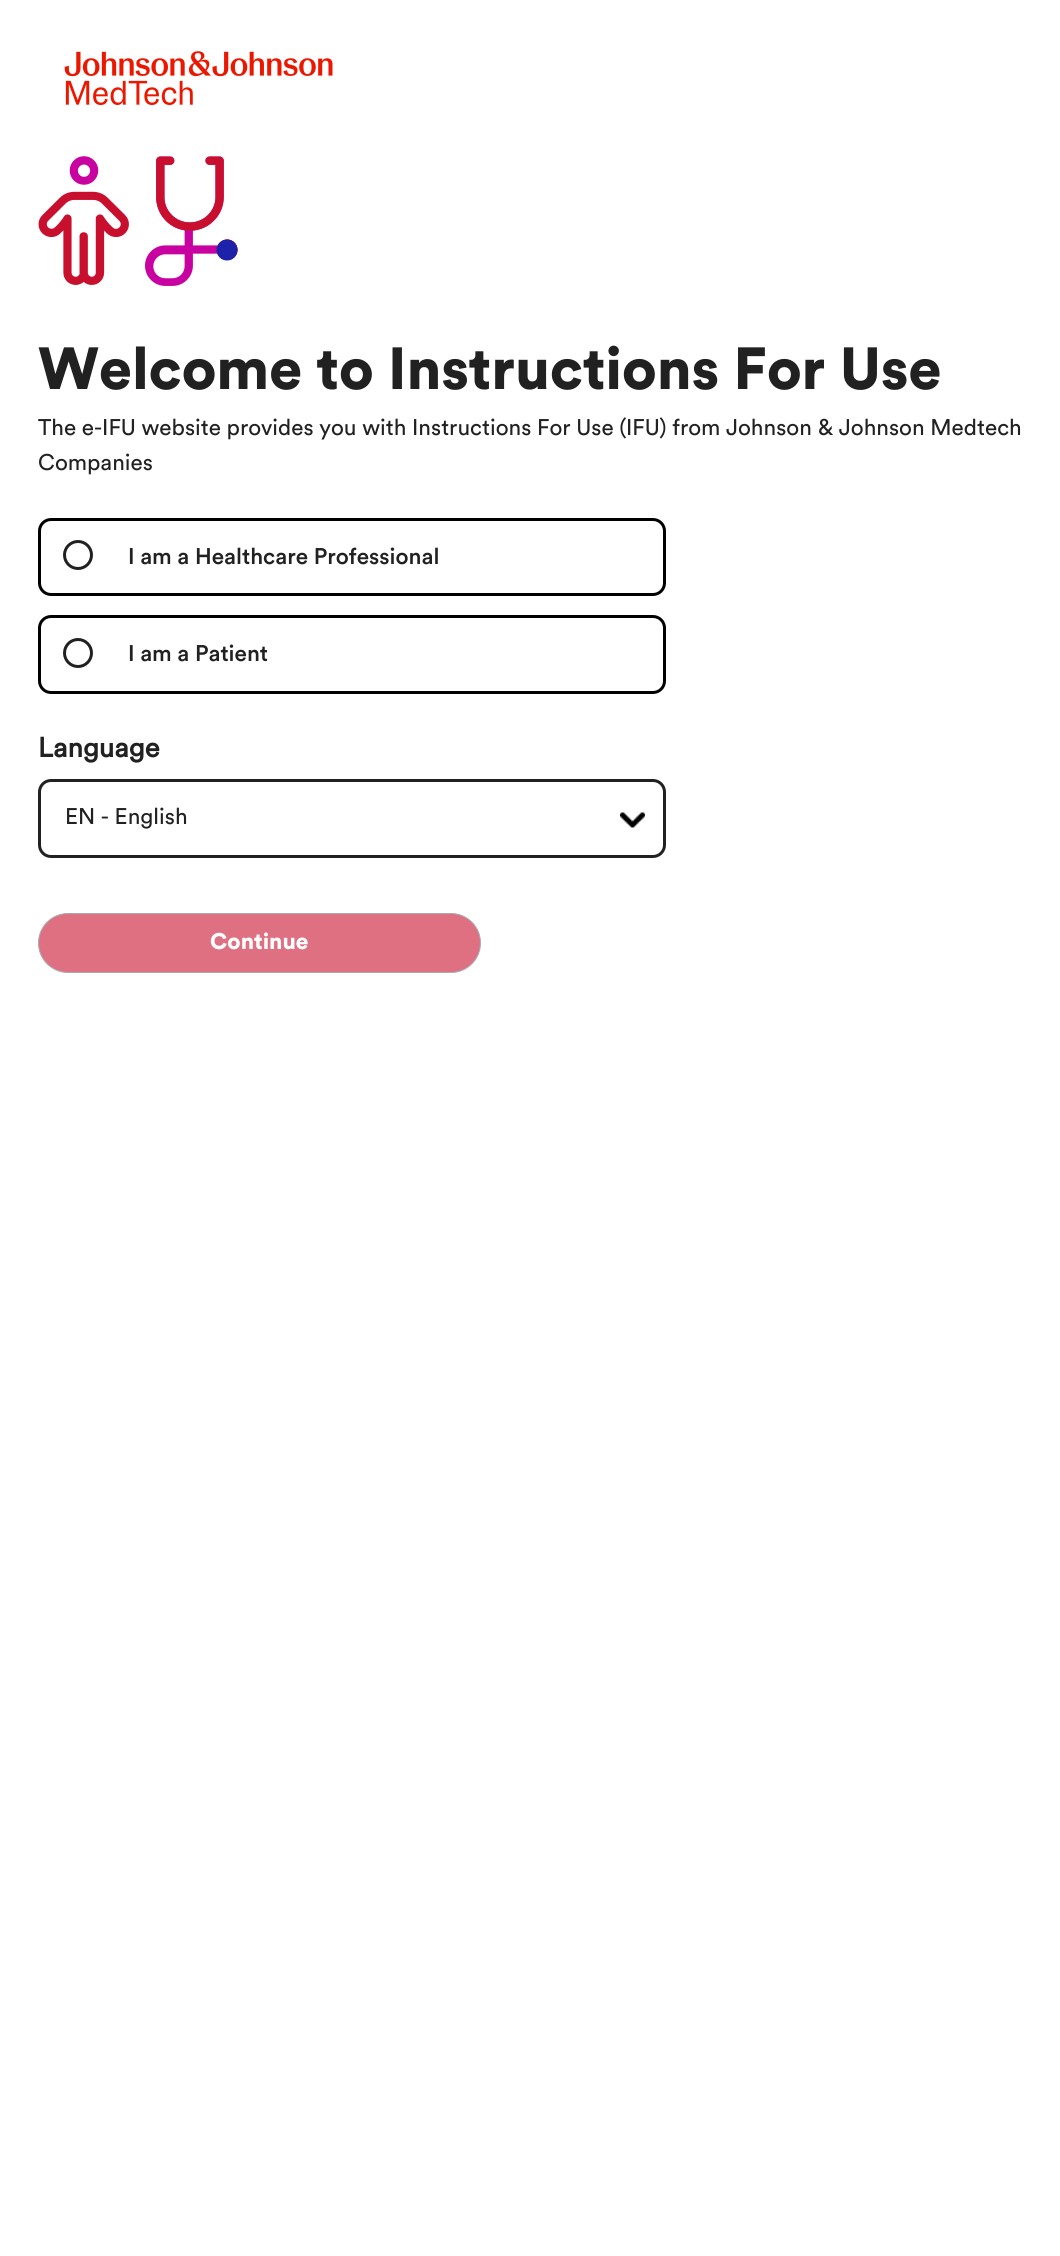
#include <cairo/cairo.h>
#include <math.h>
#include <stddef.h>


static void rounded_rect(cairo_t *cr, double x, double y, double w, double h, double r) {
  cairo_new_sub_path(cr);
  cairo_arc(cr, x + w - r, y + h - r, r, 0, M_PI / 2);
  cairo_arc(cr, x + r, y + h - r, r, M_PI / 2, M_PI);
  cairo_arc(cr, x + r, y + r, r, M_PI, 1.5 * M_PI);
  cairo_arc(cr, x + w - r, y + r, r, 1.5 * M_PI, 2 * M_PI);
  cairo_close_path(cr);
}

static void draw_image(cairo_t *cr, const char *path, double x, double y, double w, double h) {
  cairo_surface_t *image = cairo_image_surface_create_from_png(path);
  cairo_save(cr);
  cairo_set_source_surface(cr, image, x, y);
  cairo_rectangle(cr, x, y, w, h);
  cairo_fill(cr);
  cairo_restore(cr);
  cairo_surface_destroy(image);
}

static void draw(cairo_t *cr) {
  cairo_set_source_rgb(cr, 1, 1, 1);
  cairo_paint(cr);
  draw_image(cr, "images/1.png", 64, 51, 269, 54);
  draw_image(cr, "images/2.png", 38, 156, 91, 129);
  draw_image(cr, "images/3.png", 145, 156, 93, 130);
  cairo_arc(cr, 78, 555, 13.5, 0, 2 * M_PI);
  cairo_set_source_rgb(cr, 33 / 255.0, 33 / 255.0, 33 / 255.0);
  cairo_set_line_width(cr, 3);
  cairo_stroke(cr);
  rounded_rect(cr, 39.5, 519.5, 625, 75, 11.5);
  cairo_set_source_rgb(cr, 0, 0, 0);
  cairo_stroke(cr);
  cairo_arc(cr, 78, 653, 13.5, 0, 2 * M_PI);
  cairo_set_source_rgb(cr, 33 / 255.0, 33 / 255.0, 33 / 255.0);
  cairo_stroke(cr);
  rounded_rect(cr, 39.5, 616.5, 625, 76, 11.5);
  cairo_set_source_rgb(cr, 0, 0, 0);
  cairo_stroke(cr);
  draw_image(cr, "images/4.png", 620, 812, 25, 16);
  rounded_rect(cr, 39.5, 780.5, 625, 76, 11.5);
  cairo_set_source_rgb(cr, 33 / 255.0, 33 / 255.0, 33 / 255.0);
  cairo_stroke(cr);
  cairo_set_source_rgb(cr, 222 / 255.0, 112 / 255.0, 130 / 255.0);
  rounded_rect(cr, 38.5, 913.5, 442, 59, 29.5);
  cairo_fill_preserve(cr);
  cairo_set_source_rgb(cr, 167 / 255.0, 172 / 255.0, 177 / 255.0);
  cairo_set_line_width(cr, 1);
  cairo_stroke(cr);
  cairo_select_font_face(cr, "circular Black", CAIRO_FONT_SLANT_NORMAL, CAIRO_FONT_WEIGHT_NORMAL);
  cairo_set_font_size(cr, 58.75);
  cairo_set_source_rgb(cr, 33 / 255.0, 33 / 255.0, 33 / 255.0);
  cairo_move_to(cr, 38, 389);
  cairo_show_text(cr, "Welcome to Instructions For Use");
  cairo_select_font_face(cr, "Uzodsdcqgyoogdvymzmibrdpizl", CAIRO_FONT_SLANT_NORMAL, CAIRO_FONT_WEIGHT_NORMAL);
  cairo_set_font_size(cr, 22.5);
  cairo_move_to(cr, 38, 435);
  cairo_show_text(cr, "The e-IFU website provides you with Instructions For Use (IFU) from Johnson & Johnson Medtech");
  cairo_move_to(cr, 38, 470);
  cairo_show_text(cr, "Companies");
  cairo_select_font_face(cr, "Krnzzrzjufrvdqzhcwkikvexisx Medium", CAIRO_FONT_SLANT_NORMAL, CAIRO_FONT_WEIGHT_NORMAL);
  cairo_move_to(cr, 128, 564);
  cairo_show_text(cr, "I am a Healthcare Professional");
  cairo_move_to(cr, 128, 661);
  cairo_show_text(cr, "I am a Patient");
  cairo_select_font_face(cr, "Uzodsdcqgyoogdvymzmibrdpizl", CAIRO_FONT_SLANT_NORMAL, CAIRO_FONT_WEIGHT_BOLD);
  cairo_set_font_size(cr, 27.5);
  cairo_move_to(cr, 38, 757);
  cairo_show_text(cr, "Language");
  cairo_select_font_face(cr, "Uzodsdcqgyoogdvymzmibrdpizl", CAIRO_FONT_SLANT_NORMAL, CAIRO_FONT_WEIGHT_NORMAL);
  cairo_set_font_size(cr, 22.5);
  cairo_move_to(cr, 65, 824);
  cairo_show_text(cr, "EN - English");
  cairo_select_font_face(cr, "circular Black", CAIRO_FONT_SLANT_NORMAL, CAIRO_FONT_WEIGHT_NORMAL);
  cairo_set_source_rgb(cr, 1, 1, 1);
  cairo_move_to(cr, 210, 949);
  cairo_show_text(cr, "Continue");
}

int main(void) {
  cairo_surface_t *surface = cairo_image_surface_create(CAIRO_FORMAT_RGB24, 1060, 2256);
  cairo_t *cr = cairo_create(surface);
  cairo_font_options_t *options = cairo_font_options_create();
  cairo_font_options_set_hint_metrics(options, CAIRO_HINT_METRICS_OFF);
  cairo_font_options_set_hint_style(options, CAIRO_HINT_STYLE_NONE);
  cairo_set_font_options(cr, options);
  cairo_set_miter_limit(cr, 4);
  draw(cr);
  cairo_surface_write_to_png(surface, "out.png");
  cairo_font_options_destroy(options);
  cairo_destroy(cr);
  cairo_surface_destroy(surface);
  return 0;
}
